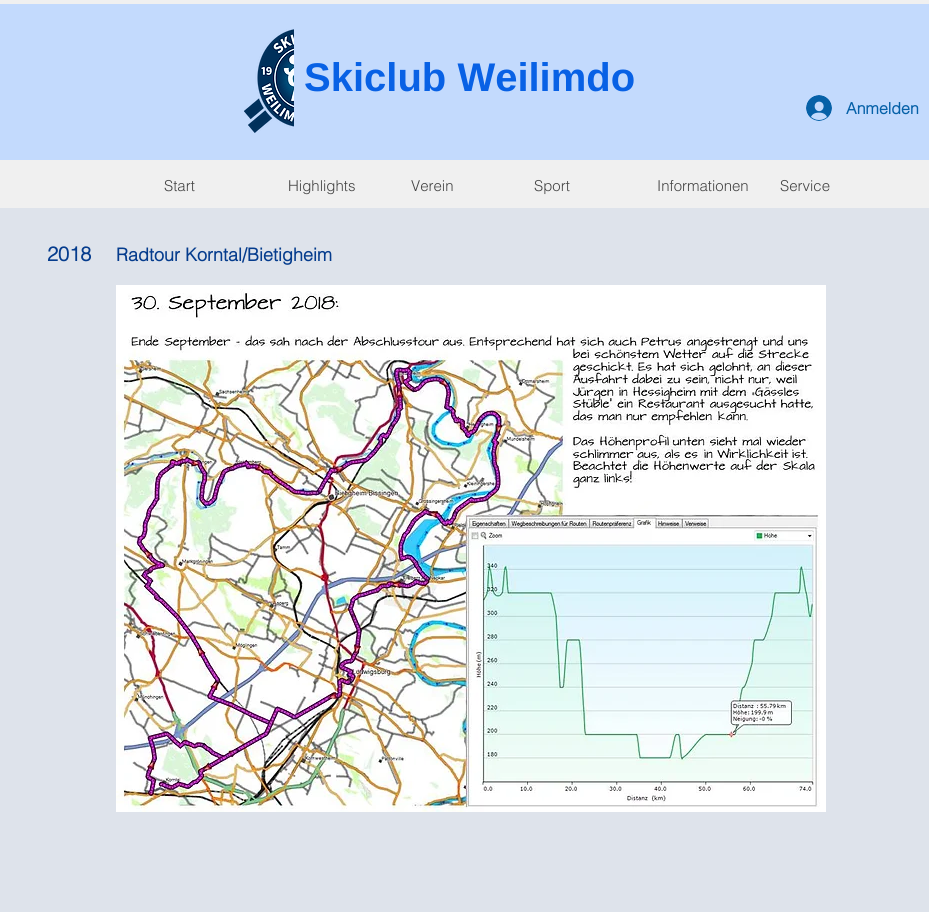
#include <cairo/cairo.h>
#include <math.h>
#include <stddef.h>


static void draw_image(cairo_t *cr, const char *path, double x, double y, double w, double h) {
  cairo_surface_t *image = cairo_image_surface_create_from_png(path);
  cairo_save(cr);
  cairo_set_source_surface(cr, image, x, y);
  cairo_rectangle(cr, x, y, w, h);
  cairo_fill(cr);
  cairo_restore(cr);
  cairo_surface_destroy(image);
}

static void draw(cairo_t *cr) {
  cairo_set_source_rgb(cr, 222 / 255.0, 227 / 255.0, 235 / 255.0);
  cairo_paint(cr);
  cairo_set_source_rgb(cr, 240 / 255.0, 240 / 255.0, 240 / 255.0);
  cairo_rectangle(cr, 0, 0, 929, 208);
  cairo_fill(cr);
  cairo_set_source_rgb(cr, 195 / 255.0, 218 / 255.0, 253 / 255.0);
  cairo_rectangle(cr, 0, 4, 929, 156);
  cairo_fill(cr);
  draw_image(cr, "images/1.png", 244, 29, 50, 104);
  draw_image(cr, "images/2.png", 806, 95, 26, 26);
  draw_image(cr, "images/3.png", 116, 285, 710, 527);
  cairo_select_font_face(cr, "Liberation Sans", CAIRO_FONT_SLANT_NORMAL, CAIRO_FONT_WEIGHT_BOLD);
  cairo_set_font_size(cr, 40);
  cairo_set_source_rgb(cr, 8 / 255.0, 97 / 255.0, 229 / 255.0);
  cairo_move_to(cr, 304, 91);
  cairo_show_text(cr, "Skiclub Weilimdo");
  cairo_select_font_face(cr, "helvetica", CAIRO_FONT_SLANT_NORMAL, CAIRO_FONT_WEIGHT_BOLD);
  cairo_set_font_size(cr, 16);
  cairo_set_source_rgb(cr, 6 / 255.0, 97 / 255.0, 168 / 255.0);
  cairo_move_to(cr, 846, 114);
  cairo_show_text(cr, "Anmelden");
  cairo_select_font_face(cr, "helvetica Light", CAIRO_FONT_SLANT_NORMAL, CAIRO_FONT_WEIGHT_NORMAL);
  cairo_set_font_size(cr, 15);
  cairo_set_source_rgb(cr, 68 / 255.0, 68 / 255.0, 68 / 255.0);
  cairo_move_to(cr, 164, 191);
  cairo_show_text(cr, "Start");
  cairo_move_to(cr, 288, 191);
  cairo_show_text(cr, "Highlights");
  cairo_move_to(cr, 411, 191);
  cairo_show_text(cr, "Verein");
  cairo_move_to(cr, 534, 191);
  cairo_show_text(cr, "Sport");
  cairo_move_to(cr, 657, 191);
  cairo_show_text(cr, "Informationen");
  cairo_move_to(cr, 780, 191);
  cairo_show_text(cr, "Service");
  cairo_select_font_face(cr, "helvetica", CAIRO_FONT_SLANT_NORMAL, CAIRO_FONT_WEIGHT_BOLD);
  cairo_set_font_size(cr, 20);
  cairo_set_source_rgb(cr, 5 / 255.0, 60 / 255.0, 141 / 255.0);
  cairo_move_to(cr, 47, 261);
  cairo_show_text(cr, "2018");
  cairo_set_font_size(cr, 18);
  cairo_move_to(cr, 116, 261);
  cairo_show_text(cr, "Radtour Korntal/Bietigheim");
}

int main(void) {
  cairo_surface_t *surface = cairo_image_surface_create(CAIRO_FORMAT_RGB24, 929, 912);
  cairo_t *cr = cairo_create(surface);
  cairo_font_options_t *options = cairo_font_options_create();
  cairo_font_options_set_hint_metrics(options, CAIRO_HINT_METRICS_OFF);
  cairo_font_options_set_hint_style(options, CAIRO_HINT_STYLE_NONE);
  cairo_set_font_options(cr, options);
  cairo_set_miter_limit(cr, 4);
  draw(cr);
  cairo_surface_write_to_png(surface, "out.png");
  cairo_font_options_destroy(options);
  cairo_destroy(cr);
  cairo_surface_destroy(surface);
  return 0;
}
